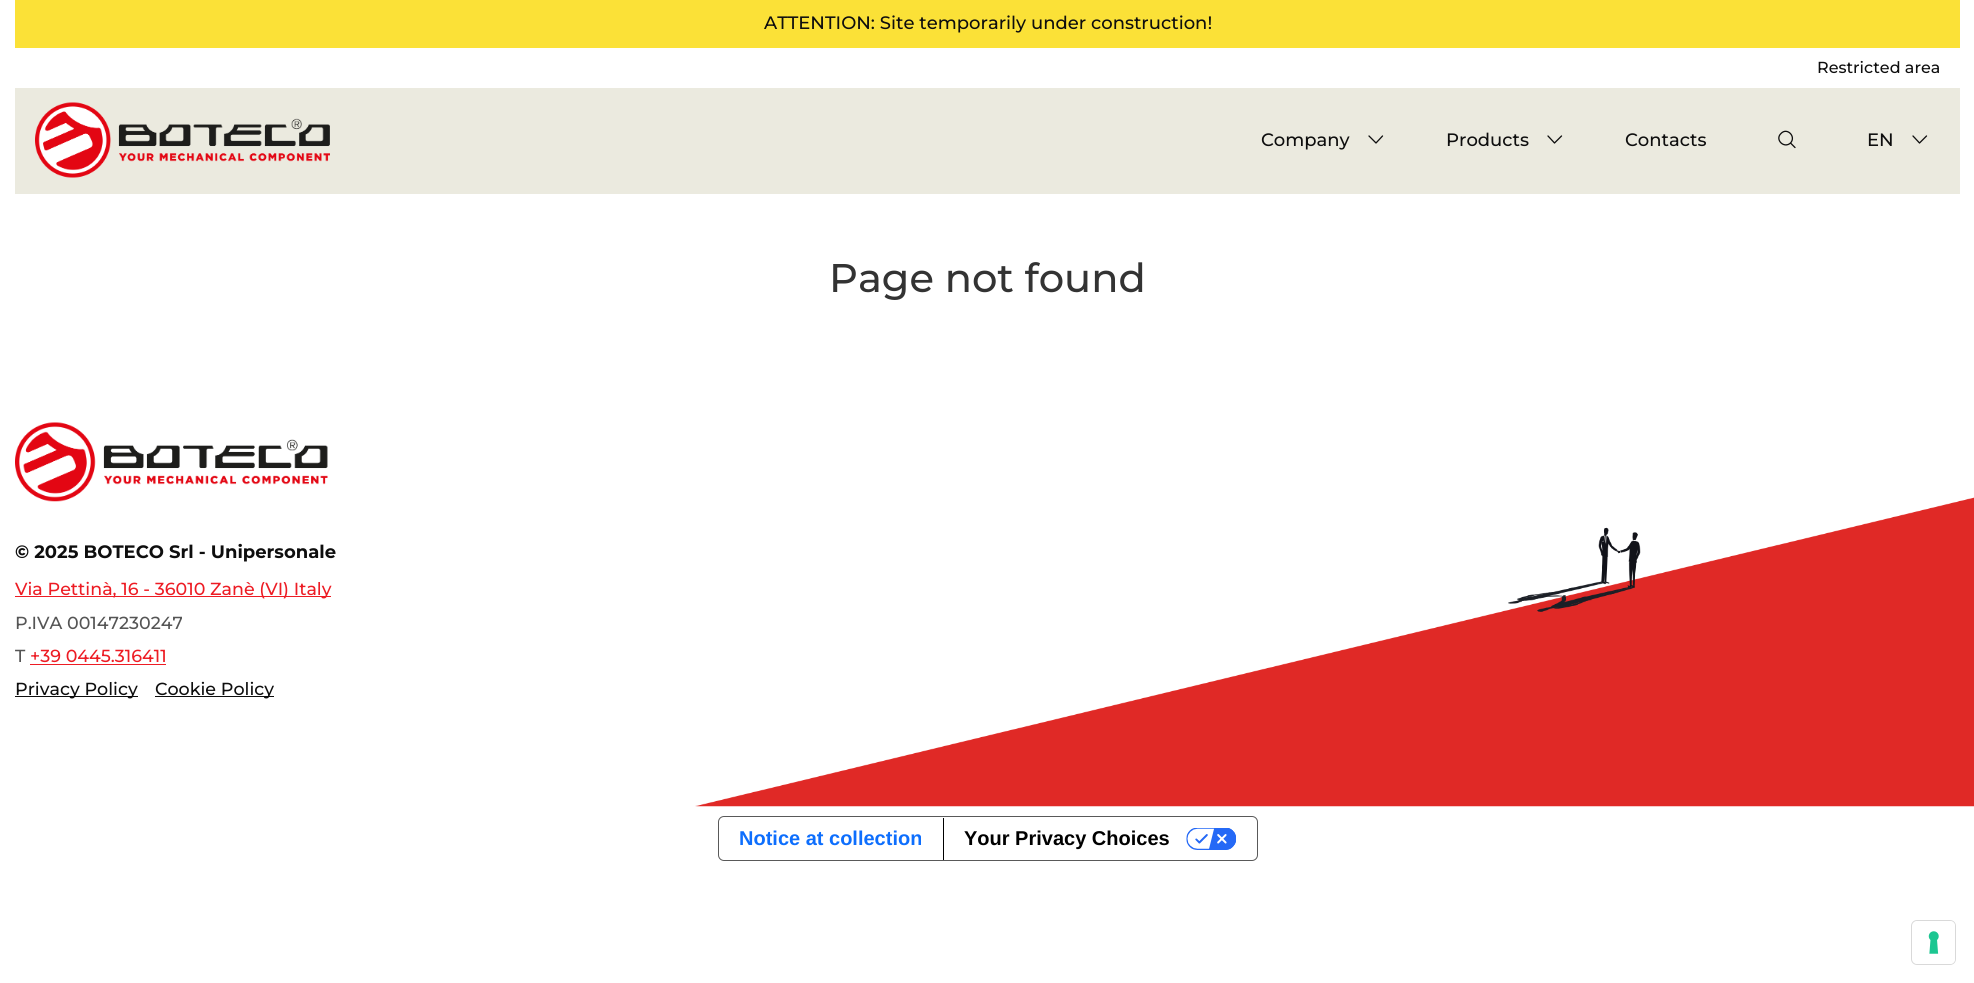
#include <cairo/cairo.h>
#include <math.h>
#include <stddef.h>


static void rounded_rect(cairo_t *cr, double x, double y, double w, double h, double r) {
  cairo_new_sub_path(cr);
  cairo_arc(cr, x + w - r, y + h - r, r, 0, M_PI / 2);
  cairo_arc(cr, x + r, y + h - r, r, M_PI / 2, M_PI);
  cairo_arc(cr, x + r, y + r, r, M_PI, 1.5 * M_PI);
  cairo_arc(cr, x + w - r, y + r, r, 1.5 * M_PI, 2 * M_PI);
  cairo_close_path(cr);
}

static void draw_image(cairo_t *cr, const char *path, double x, double y, double w, double h) {
  cairo_surface_t *image = cairo_image_surface_create_from_png(path);
  cairo_save(cr);
  cairo_set_source_surface(cr, image, x, y);
  cairo_rectangle(cr, x, y, w, h);
  cairo_fill(cr);
  cairo_restore(cr);
  cairo_surface_destroy(image);
}

static void draw(cairo_t *cr) {
  cairo_set_source_rgb(cr, 1, 1, 1);
  cairo_paint(cr);
  cairo_set_source_rgb(cr, 251 / 255.0, 225 / 255.0, 55 / 255.0);
  cairo_rectangle(cr, 15, 0, 1945, 48);
  cairo_fill(cr);
  cairo_set_source_rgb(cr, 235 / 255.0, 234 / 255.0, 223 / 255.0);
  cairo_rectangle(cr, 15, 88, 1945, 106);
  cairo_fill(cr);
  draw_image(cr, "images/1.png", 35, 102, 295, 76);
  cairo_new_path(cr);
  cairo_move_to(cr, 1382.5, 136);
  cairo_line_to(cr, 1376, 143);
  cairo_line_to(cr, 1369, 136);
  cairo_set_source_rgb(cr, 14 / 255.0, 14 / 255.0, 14 / 255.0);
  cairo_set_line_width(cr, 1.3);
  cairo_set_line_cap(cr, CAIRO_LINE_CAP_ROUND);
  cairo_set_line_join(cr, CAIRO_LINE_JOIN_ROUND);
  cairo_stroke(cr);
  cairo_new_path(cr);
  cairo_move_to(cr, 1561.5, 136);
  cairo_line_to(cr, 1554.5, 143);
  cairo_line_to(cr, 1548, 136);
  cairo_stroke(cr);
  cairo_new_path(cr);
  cairo_move_to(cr, 1795, 147.5);
  cairo_line_to(cr, 1790.5, 143);
  cairo_move_to(cr, 1790.5, 143);
  cairo_curve_to(cr, 1796.5, 136.5, 1787, 127, 1781, 133.5);
  cairo_curve_to(cr, 1774.5, 139.5, 1784, 149, 1790.5, 143);
  cairo_close_path(cr);
  cairo_stroke(cr);
  cairo_new_path(cr);
  cairo_move_to(cr, 1926.5, 136);
  cairo_line_to(cr, 1919.5, 143);
  cairo_line_to(cr, 1913, 136);
  cairo_stroke(cr);
  draw_image(cr, "images/2.png", 695, 497, 1279, 310);
  draw_image(cr, "images/3.png", 15, 422, 313, 80);
  cairo_set_source_rgb(cr, 237 / 255.0, 28 / 255.0, 36 / 255.0);
  cairo_rectangle(cr, 15, 596, 316, 1);
  cairo_fill(cr);
  cairo_rectangle(cr, 30, 664, 136, 1);
  cairo_fill(cr);
  cairo_set_source_rgb(cr, 14 / 255.0, 14 / 255.0, 14 / 255.0);
  cairo_rectangle(cr, 15, 696, 123, 1);
  cairo_fill(cr);
  cairo_rectangle(cr, 155, 696, 119, 1);
  cairo_fill(cr);
  rounded_rect(cr, 718.5, 816.5, 539, 44, 5.5);
  cairo_set_source_rgb(cr, 89 / 255.0, 89 / 255.0, 89 / 255.0);
  cairo_set_line_width(cr, 1);
  cairo_set_line_cap(cr, CAIRO_LINE_CAP_BUTT);
  cairo_set_line_join(cr, CAIRO_LINE_JOIN_MITER);
  cairo_stroke(cr);
  cairo_set_source_rgb(cr, 0, 0, 0);
  cairo_rectangle(cr, 943, 818, 1, 42);
  cairo_fill(cr);
  draw_image(cr, "images/4.png", 1186, 828, 50, 22);
  rounded_rect(cr, 1911.5, 920.5, 44, 44, 5.5);
  cairo_set_source_rgb(cr, 217 / 255.0, 217 / 255.0, 217 / 255.0);
  cairo_stroke(cr);
  cairo_set_source_rgb(cr, 1, 1, 1);
  rounded_rect(cr, 1913, 921, 42, 43, 5);
  cairo_fill(cr);
  draw_image(cr, "images/5.png", 1928, 931, 11, 23);
  cairo_select_font_face(cr, "Montserrat Thin", CAIRO_FONT_SLANT_NORMAL, CAIRO_FONT_WEIGHT_NORMAL);
  cairo_set_font_size(cr, 18);
  cairo_set_source_rgb(cr, 14 / 255.0, 14 / 255.0, 14 / 255.0);
  cairo_move_to(cr, 764, 29);
  cairo_show_text(cr, "ATTENTION: Site temporarily under construction!");
  cairo_set_font_size(cr, 16);
  cairo_move_to(cr, 1817, 73);
  cairo_show_text(cr, "Restricted area");
  cairo_set_font_size(cr, 18);
  cairo_move_to(cr, 1261, 146);
  cairo_show_text(cr, "Company");
  cairo_move_to(cr, 1446, 146);
  cairo_show_text(cr, "Products");
  cairo_move_to(cr, 1625, 146);
  cairo_show_text(cr, "Contacts");
  cairo_move_to(cr, 1867, 146);
  cairo_show_text(cr, "EN");
  cairo_set_font_size(cr, 40);
  cairo_set_source_rgb(cr, 51 / 255.0, 51 / 255.0, 51 / 255.0);
  cairo_move_to(cr, 829, 292);
  cairo_show_text(cr, "Page not found");
  cairo_select_font_face(cr, "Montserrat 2 Thin", CAIRO_FONT_SLANT_NORMAL, CAIRO_FONT_WEIGHT_NORMAL);
  cairo_set_font_size(cr, 18);
  cairo_set_source_rgb(cr, 14 / 255.0, 14 / 255.0, 14 / 255.0);
  cairo_move_to(cr, 15, 558);
  cairo_show_text(cr, "© 2025 BOTECO Srl - Unipersonale");
  cairo_select_font_face(cr, "Montserrat Thin", CAIRO_FONT_SLANT_NORMAL, CAIRO_FONT_WEIGHT_NORMAL);
  cairo_set_font_size(cr, 17.5);
  cairo_set_source_rgb(cr, 237 / 255.0, 28 / 255.0, 36 / 255.0);
  cairo_move_to(cr, 15, 595);
  cairo_show_text(cr, "Via Pettinà, 16 - 36010 Zanè (VI) Italy");
  cairo_set_source_rgb(cr, 85 / 255.0, 85 / 255.0, 85 / 255.0);
  cairo_move_to(cr, 15, 629);
  cairo_show_text(cr, "P.IVA 00147230247");
  cairo_move_to(cr, 15, 662);
  cairo_show_text(cr, "T");
  cairo_set_source_rgb(cr, 237 / 255.0, 28 / 255.0, 36 / 255.0);
  cairo_move_to(cr, 30, 662);
  cairo_show_text(cr, "+39 0445.316411");
  cairo_set_source_rgb(cr, 14 / 255.0, 14 / 255.0, 14 / 255.0);
  cairo_move_to(cr, 15, 695);
  cairo_show_text(cr, "Privacy Policy");
  cairo_move_to(cr, 155, 695);
  cairo_show_text(cr, "Cookie Policy");
  cairo_select_font_face(cr, "Liberation Sans", CAIRO_FONT_SLANT_NORMAL, CAIRO_FONT_WEIGHT_BOLD);
  cairo_set_font_size(cr, 20);
  cairo_set_source_rgb(cr, 13 / 255.0, 110 / 255.0, 253 / 255.0);
  cairo_move_to(cr, 739, 845);
  cairo_show_text(cr, "Notice at collection");
  cairo_set_source_rgb(cr, 0, 0, 0);
  cairo_move_to(cr, 964, 845);
  cairo_show_text(cr, "Your Privacy Choices");
}

int main(void) {
  cairo_surface_t *surface = cairo_image_surface_create(CAIRO_FORMAT_RGB24, 1974, 983);
  cairo_t *cr = cairo_create(surface);
  cairo_font_options_t *options = cairo_font_options_create();
  cairo_font_options_set_hint_metrics(options, CAIRO_HINT_METRICS_OFF);
  cairo_font_options_set_hint_style(options, CAIRO_HINT_STYLE_NONE);
  cairo_set_font_options(cr, options);
  cairo_set_miter_limit(cr, 4);
  draw(cr);
  cairo_surface_write_to_png(surface, "out.png");
  cairo_font_options_destroy(options);
  cairo_destroy(cr);
  cairo_surface_destroy(surface);
  return 0;
}
